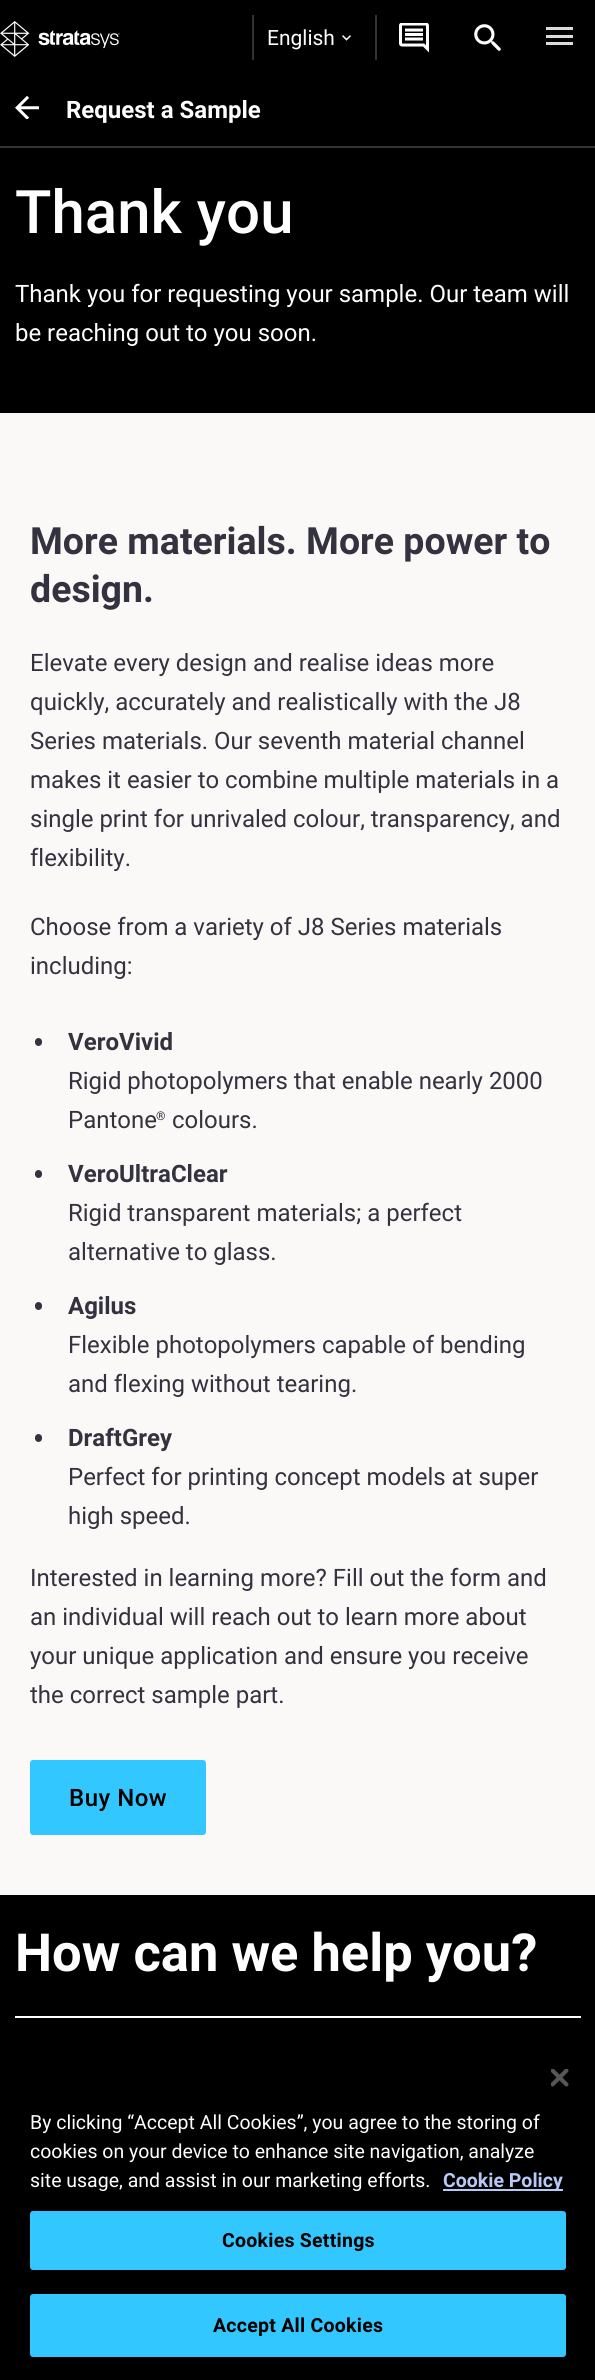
#include <cairo/cairo.h>
#include <math.h>
#include <stddef.h>


static void draw_spaced(cairo_t *cr, double x, double y, const char *s, double letter, double word) {
  cairo_move_to(cr, x, y);
  while (*s) {
    char ch[5] = {0};
    int n = 0;
    do ch[n++] = *s++; while ((*s & 0xC0) == 0x80);
    cairo_show_text(cr, ch);
    cairo_rel_move_to(cr, letter + word * (*ch == ' '), 0);
  }
}

static void rounded_rect(cairo_t *cr, double x, double y, double w, double h, double r) {
  cairo_new_sub_path(cr);
  cairo_arc(cr, x + w - r, y + h - r, r, 0, M_PI / 2);
  cairo_arc(cr, x + r, y + h - r, r, M_PI / 2, M_PI);
  cairo_arc(cr, x + r, y + r, r, M_PI, 1.5 * M_PI);
  cairo_arc(cr, x + w - r, y + r, r, 1.5 * M_PI, 2 * M_PI);
  cairo_close_path(cr);
}

static void draw_image(cairo_t *cr, const char *path, double x, double y, double w, double h) {
  cairo_surface_t *image = cairo_image_surface_create_from_png(path);
  cairo_save(cr);
  cairo_set_source_surface(cr, image, x, y);
  cairo_rectangle(cr, x, y, w, h);
  cairo_fill(cr);
  cairo_restore(cr);
  cairo_surface_destroy(image);
}

static void draw(cairo_t *cr) {
  cairo_set_source_rgb(cr, 0, 0, 0);
  cairo_paint(cr);
  draw_image(cr, "images/1.png", 0, 21, 120, 36);
  cairo_set_source_rgb(cr, 51 / 255.0, 51 / 255.0, 51 / 255.0);
  cairo_rectangle(cr, 252, 15, 2, 45);
  cairo_fill(cr);
  draw_image(cr, "images/2.png", 342, 35, 9, 6);
  cairo_rectangle(cr, 375, 15, 2, 45);
  cairo_fill(cr);
  draw_image(cr, "images/3.png", 399, 23, 30, 30);
  draw_image(cr, "images/4.png", 474, 24, 27, 27);
  cairo_set_source_rgb(cr, 218 / 255.0, 218 / 255.0, 218 / 255.0);
  cairo_rectangle(cr, 546, 27, 27, 3);
  cairo_fill(cr);
  cairo_rectangle(cr, 546, 35, 27, 3);
  cairo_fill(cr);
  cairo_rectangle(cr, 546, 42, 27, 3);
  cairo_fill(cr);
  cairo_set_source_rgb(cr, 51 / 255.0, 51 / 255.0, 51 / 255.0);
  cairo_rectangle(cr, 0, 146, 595, 2);
  cairo_fill(cr);
  draw_image(cr, "images/5.png", 15, 95, 24, 24);
  cairo_set_source_rgb(cr, 250 / 255.0, 249 / 255.0, 247 / 255.0);
  cairo_rectangle(cr, 0, 413, 595, 1482);
  cairo_fill(cr);
  cairo_set_source_rgb(cr, 52 / 255.0, 50 / 255.0, 63 / 255.0);
  rounded_rect(cr, 35, 1038, 7, 8, 3.5);
  cairo_fill(cr);
  rounded_rect(cr, 35, 1170, 7, 8, 3.5);
  cairo_fill(cr);
  rounded_rect(cr, 35, 1302, 7, 8, 3.5);
  cairo_fill(cr);
  rounded_rect(cr, 35, 1434, 7, 8, 3.5);
  cairo_fill(cr);
  cairo_set_source_rgb(cr, 50 / 255.0, 200 / 255.0, 1);
  rounded_rect(cr, 30, 1760, 176, 75, 3);
  cairo_fill(cr);
  cairo_set_source_rgb(cr, 1, 1, 1);
  cairo_rectangle(cr, 15, 2016, 566, 2);
  cairo_fill(cr);
  draw_image(cr, "images/6.png", 551, 2069, 18, 18);
  cairo_set_source_rgb(cr, 183 / 255.0, 202 / 255.0, 247 / 255.0);
  cairo_rectangle(cr, 443, 2189, 120, 2);
  cairo_fill(cr);
  cairo_set_source_rgb(cr, 50 / 255.0, 200 / 255.0, 1);
  rounded_rect(cr, 30, 2211, 536, 59, 3);
  cairo_fill(cr);
  rounded_rect(cr, 31, 2295, 534, 61, 2);
  cairo_fill_preserve(cr);
  cairo_stroke(cr);
  cairo_select_font_face(cr, "Roboto", CAIRO_FONT_SLANT_NORMAL, CAIRO_FONT_WEIGHT_NORMAL);
  cairo_set_font_size(cr, 21);
  cairo_set_source_rgb(cr, 1, 1, 1);
  cairo_move_to(cr, 267, 45);
  cairo_show_text(cr, "English");
  cairo_select_font_face(cr, "Roboto", CAIRO_FONT_SLANT_NORMAL, CAIRO_FONT_WEIGHT_BOLD);
  cairo_set_font_size(cr, 24);
  cairo_move_to(cr, 66, 118);
  cairo_show_text(cr, "Request a Sample");
  cairo_select_font_face(cr, "Roboto Medium", CAIRO_FONT_SLANT_NORMAL, CAIRO_FONT_WEIGHT_NORMAL);
  cairo_set_font_size(cr, 60);
  cairo_move_to(cr, 15, 233);
  cairo_show_text(cr, "Thank you");
  cairo_select_font_face(cr, "Roboto", CAIRO_FONT_SLANT_NORMAL, CAIRO_FONT_WEIGHT_NORMAL);
  cairo_set_font_size(cr, 24);
  cairo_move_to(cr, 15, 302);
  cairo_show_text(cr, "Thank you for requesting your sample. Our team will");
  cairo_move_to(cr, 15, 341);
  cairo_show_text(cr, "be reaching out to you soon.");
  cairo_select_font_face(cr, "Roboto", CAIRO_FONT_SLANT_NORMAL, CAIRO_FONT_WEIGHT_BOLD);
  cairo_set_font_size(cr, 37.5);
  cairo_set_source_rgb(cr, 52 / 255.0, 50 / 255.0, 63 / 255.0);
  cairo_move_to(cr, 30, 554);
  cairo_show_text(cr, "More materials. More power to");
  cairo_move_to(cr, 30, 602);
  cairo_show_text(cr, "design.");
  cairo_select_font_face(cr, "Roboto", CAIRO_FONT_SLANT_NORMAL, CAIRO_FONT_WEIGHT_NORMAL);
  cairo_set_font_size(cr, 24);
  cairo_move_to(cr, 30, 671);
  cairo_show_text(cr, "Elevate every design and realise ideas more");
  cairo_move_to(cr, 30, 710);
  cairo_show_text(cr, "quickly, accurately and realistically with the J8");
  cairo_move_to(cr, 30, 749);
  cairo_show_text(cr, "Series materials. Our seventh material channel");
  cairo_move_to(cr, 30, 788);
  cairo_show_text(cr, "makes it easier to combine multiple materials in a");
  cairo_move_to(cr, 30, 827);
  cairo_show_text(cr, "single print for unrivaled colour, transparency, and");
  cairo_move_to(cr, 30, 866);
  cairo_show_text(cr, "flexibility.");
  cairo_move_to(cr, 30, 935);
  cairo_show_text(cr, "Choose from a variety of J8 Series materials");
  cairo_move_to(cr, 30, 974);
  cairo_show_text(cr, "including:");
  cairo_select_font_face(cr, "Roboto", CAIRO_FONT_SLANT_NORMAL, CAIRO_FONT_WEIGHT_BOLD);
  cairo_move_to(cr, 68, 1050);
  cairo_show_text(cr, "VeroVivid");
  cairo_select_font_face(cr, "Roboto", CAIRO_FONT_SLANT_NORMAL, CAIRO_FONT_WEIGHT_NORMAL);
  cairo_move_to(cr, 68, 1089);
  cairo_show_text(cr, "Rigid photopolymers that enable nearly 2000");
  cairo_move_to(cr, 68, 1128);
  cairo_show_text(cr, "Pantone");
  cairo_set_font_size(cr, 12);
  cairo_move_to(cr, 156, 1120);
  cairo_show_text(cr, "®");
  cairo_set_font_size(cr, 24);
  cairo_move_to(cr, 172, 1128);
  cairo_show_text(cr, "colours.");
  cairo_select_font_face(cr, "Roboto", CAIRO_FONT_SLANT_NORMAL, CAIRO_FONT_WEIGHT_BOLD);
  cairo_move_to(cr, 68, 1182);
  cairo_show_text(cr, "VeroUltraClear");
  cairo_select_font_face(cr, "Roboto", CAIRO_FONT_SLANT_NORMAL, CAIRO_FONT_WEIGHT_NORMAL);
  cairo_move_to(cr, 68, 1221);
  cairo_show_text(cr, "Rigid transparent materials; a perfect");
  cairo_move_to(cr, 68, 1260);
  cairo_show_text(cr, "alternative to glass.");
  cairo_select_font_face(cr, "Roboto", CAIRO_FONT_SLANT_NORMAL, CAIRO_FONT_WEIGHT_BOLD);
  cairo_move_to(cr, 68, 1314);
  cairo_show_text(cr, "Agilus");
  cairo_select_font_face(cr, "Roboto", CAIRO_FONT_SLANT_NORMAL, CAIRO_FONT_WEIGHT_NORMAL);
  cairo_move_to(cr, 68, 1353);
  cairo_show_text(cr, "Flexible photopolymers capable of bending");
  cairo_move_to(cr, 68, 1392);
  cairo_show_text(cr, "and flexing without tearing.");
  cairo_select_font_face(cr, "Roboto", CAIRO_FONT_SLANT_NORMAL, CAIRO_FONT_WEIGHT_BOLD);
  cairo_move_to(cr, 68, 1446);
  cairo_show_text(cr, "DraftGrey");
  cairo_select_font_face(cr, "Roboto", CAIRO_FONT_SLANT_NORMAL, CAIRO_FONT_WEIGHT_NORMAL);
  cairo_move_to(cr, 68, 1485);
  cairo_show_text(cr, "Perfect for printing concept models at super");
  cairo_move_to(cr, 68, 1524);
  cairo_show_text(cr, "high speed.");
  cairo_move_to(cr, 30, 1586);
  cairo_show_text(cr, "Interested in learning more? Fill out the form and");
  cairo_move_to(cr, 30, 1625);
  cairo_show_text(cr, "an individual will reach out to learn more about");
  cairo_move_to(cr, 30, 1664);
  cairo_show_text(cr, "your unique application and ensure you receive");
  cairo_move_to(cr, 30, 1703);
  cairo_show_text(cr, "the correct sample part.");
  cairo_select_font_face(cr, "Roboto Medium", CAIRO_FONT_SLANT_NORMAL, CAIRO_FONT_WEIGHT_NORMAL);
  cairo_set_source_rgb(cr, 0, 0, 0);
  draw_spaced(cr, 69, 1806, "Buy Now", 0.5, 0);
  cairo_select_font_face(cr, "Roboto", CAIRO_FONT_SLANT_NORMAL, CAIRO_FONT_WEIGHT_BOLD);
  cairo_set_font_size(cr, 52.5);
  cairo_set_source_rgb(cr, 1, 1, 1);
  cairo_move_to(cr, 15, 1971);
  cairo_show_text(cr, "How can we help you?");
  cairo_select_font_face(cr, "Roboto", CAIRO_FONT_SLANT_NORMAL, CAIRO_FONT_WEIGHT_NORMAL);
  cairo_set_font_size(cr, 19.5);
  cairo_move_to(cr, 30, 2129);
  cairo_show_text(cr, "By clicking “Accept All Cookies”, you agree to the storing of");
  cairo_move_to(cr, 30, 2158);
  cairo_show_text(cr, "cookies on your device to enhance site navigation, analyze");
  cairo_move_to(cr, 30, 2187);
  cairo_show_text(cr, "site usage, and assist in our marketing efforts.");
  cairo_select_font_face(cr, "Roboto", CAIRO_FONT_SLANT_NORMAL, CAIRO_FONT_WEIGHT_BOLD);
  cairo_set_source_rgb(cr, 183 / 255.0, 202 / 255.0, 247 / 255.0);
  cairo_move_to(cr, 443, 2187);
  cairo_show_text(cr, "Cookie Policy");
  cairo_set_source_rgb(cr, 0, 0, 0);
  draw_spaced(cr, 222, 2247, "Cookies Settings", 0.25, 0);
  draw_spaced(cr, 213, 2332, "Accept All Cookies", 0.25, 0);
}

int main(void) {
  cairo_surface_t *surface = cairo_image_surface_create(CAIRO_FORMAT_RGB24, 595, 2380);
  cairo_t *cr = cairo_create(surface);
  cairo_font_options_t *options = cairo_font_options_create();
  cairo_font_options_set_hint_metrics(options, CAIRO_HINT_METRICS_OFF);
  cairo_font_options_set_hint_style(options, CAIRO_HINT_STYLE_NONE);
  cairo_set_font_options(cr, options);
  cairo_set_miter_limit(cr, 4);
  draw(cr);
  cairo_surface_write_to_png(surface, "out.png");
  cairo_font_options_destroy(options);
  cairo_destroy(cr);
  cairo_surface_destroy(surface);
  return 0;
}
